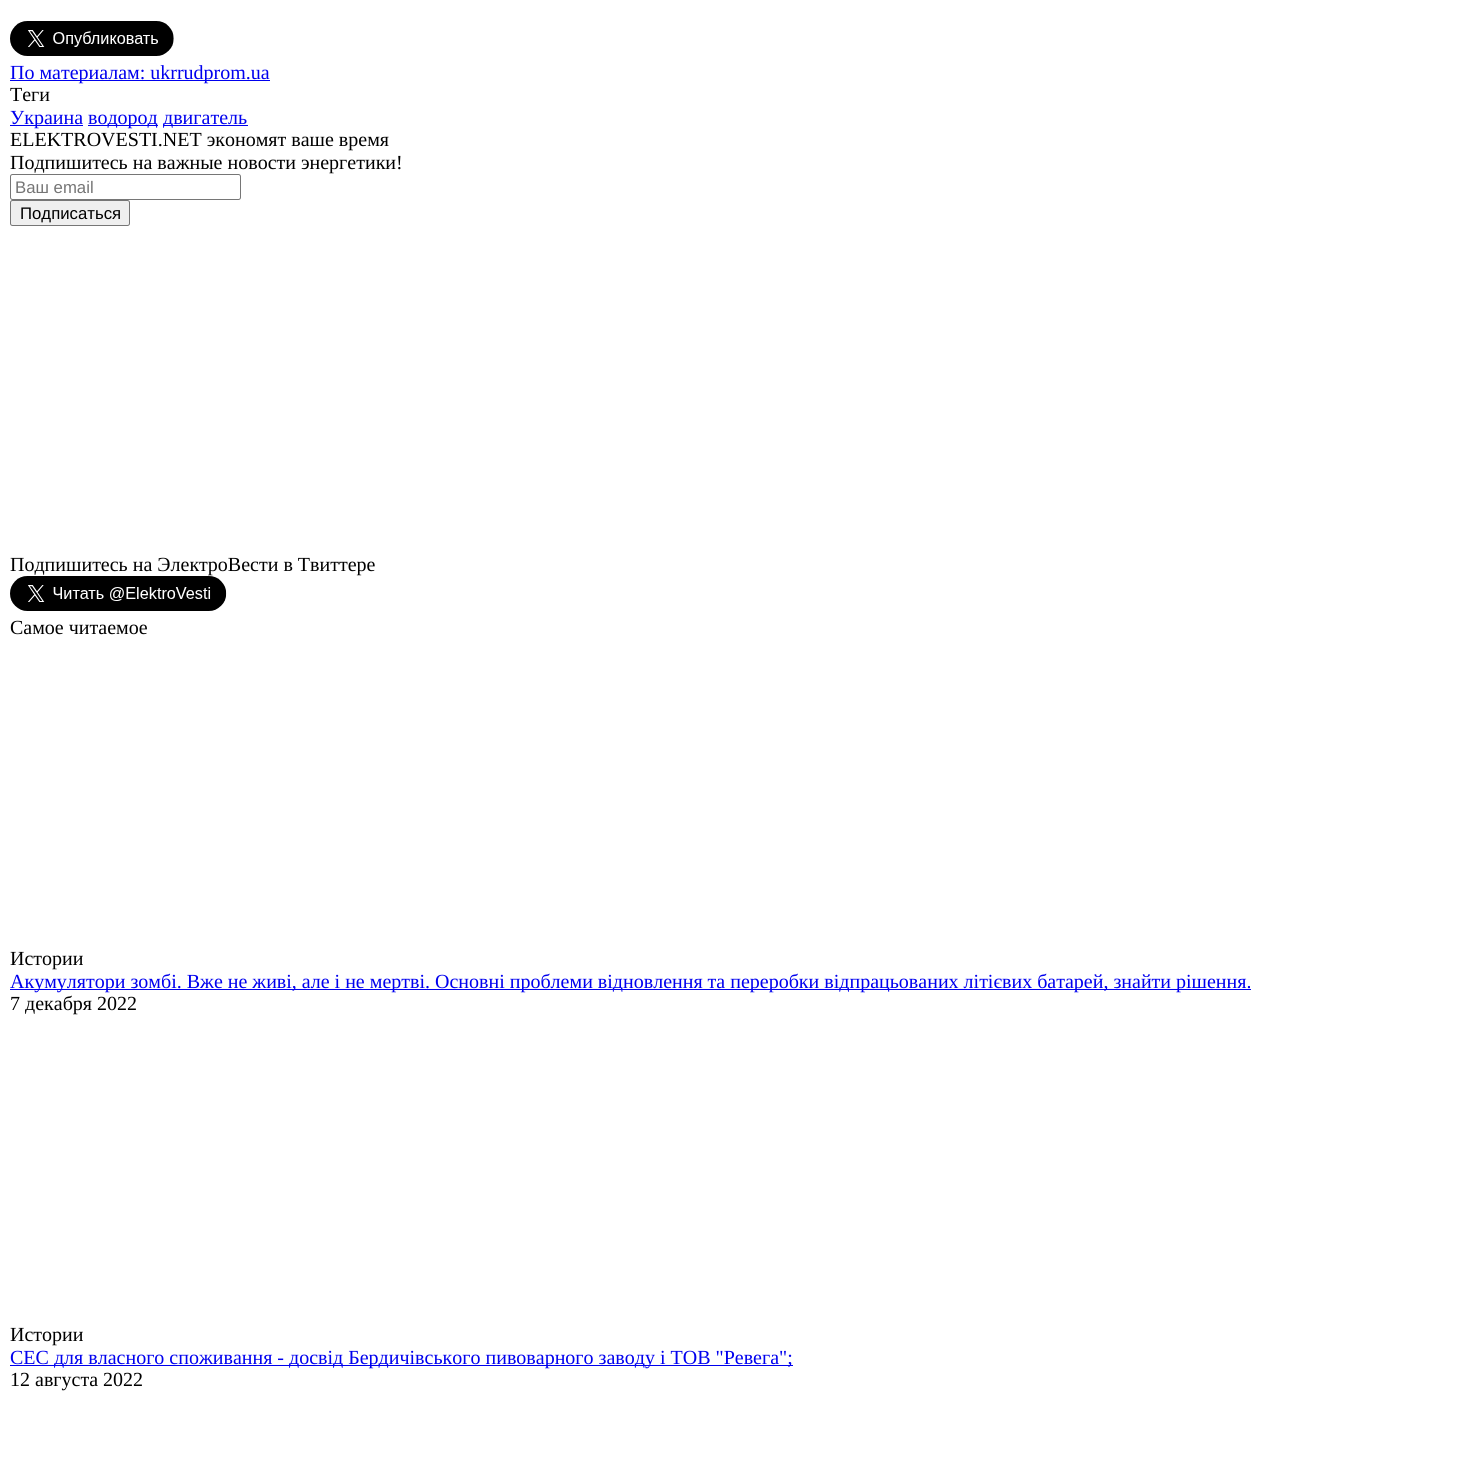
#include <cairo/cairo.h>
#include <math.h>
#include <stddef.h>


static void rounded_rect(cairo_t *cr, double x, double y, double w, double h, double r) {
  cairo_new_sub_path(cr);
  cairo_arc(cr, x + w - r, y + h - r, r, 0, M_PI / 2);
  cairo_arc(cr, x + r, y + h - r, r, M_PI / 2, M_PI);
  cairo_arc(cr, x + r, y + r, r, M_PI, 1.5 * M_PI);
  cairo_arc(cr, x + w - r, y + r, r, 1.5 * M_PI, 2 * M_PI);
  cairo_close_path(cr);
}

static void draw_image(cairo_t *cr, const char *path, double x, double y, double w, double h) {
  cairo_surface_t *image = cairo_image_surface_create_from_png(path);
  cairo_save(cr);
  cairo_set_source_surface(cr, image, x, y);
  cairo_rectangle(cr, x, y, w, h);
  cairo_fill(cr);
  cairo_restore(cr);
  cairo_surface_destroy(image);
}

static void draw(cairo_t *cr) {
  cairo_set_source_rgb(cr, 1, 1, 1);
  cairo_paint(cr);
  draw_image(cr, "images/1.png", 10, 21, 164, 35);
  cairo_set_source_rgb(cr, 0, 0, 238 / 255.0);
  cairo_rectangle(cr, 10, 80, 260, 1);
  cairo_fill(cr);
  cairo_rectangle(cr, 10, 125, 73, 1);
  cairo_fill(cr);
  cairo_rectangle(cr, 88, 125, 70, 1);
  cairo_fill(cr);
  cairo_rectangle(cr, 163, 125, 85, 1);
  cairo_fill(cr);
  rounded_rect(cr, 10.5, 174.5, 230, 25, 2);
  cairo_set_source_rgb(cr, 118 / 255.0, 118 / 255.0, 118 / 255.0);
  cairo_set_line_width(cr, 1);
  cairo_stroke(cr);
  cairo_set_source_rgb(cr, 239 / 255.0, 239 / 255.0, 239 / 255.0);
  rounded_rect(cr, 10.5, 200.5, 119, 25, 2);
  cairo_fill_preserve(cr);
  cairo_set_source_rgb(cr, 118 / 255.0, 118 / 255.0, 118 / 255.0);
  cairo_stroke(cr);
  draw_image(cr, "images/2.png", 10, 576, 217, 35);
  cairo_set_source_rgb(cr, 0, 0, 238 / 255.0);
  cairo_rectangle(cr, 10, 989, 1241, 1);
  cairo_fill(cr);
  cairo_rectangle(cr, 10, 1365, 783, 1);
  cairo_fill(cr);
  cairo_select_font_face(cr, "Liberation Serif", CAIRO_FONT_SLANT_NORMAL, CAIRO_FONT_WEIGHT_NORMAL);
  cairo_set_font_size(cr, 20);
  cairo_move_to(cr, 10, 79);
  cairo_show_text(cr, "По материалам: ukrrudprom.ua");
  cairo_set_source_rgb(cr, 0, 0, 0);
  cairo_move_to(cr, 10, 101);
  cairo_show_text(cr, "Теги");
  cairo_set_source_rgb(cr, 0, 0, 238 / 255.0);
  cairo_move_to(cr, 10, 124);
  cairo_show_text(cr, "Украина");
  cairo_move_to(cr, 88, 124);
  cairo_show_text(cr, "водород");
  cairo_move_to(cr, 163, 124);
  cairo_show_text(cr, "двигатель");
  cairo_set_source_rgb(cr, 0, 0, 0);
  cairo_move_to(cr, 10, 146);
  cairo_show_text(cr, "ELEKTROVESTI.NET экономят ваше время");
  cairo_move_to(cr, 10, 169);
  cairo_show_text(cr, "Подпишитесь на важные новости энергетики!");
  cairo_select_font_face(cr, "Liberation Sans", CAIRO_FONT_SLANT_NORMAL, CAIRO_FONT_WEIGHT_NORMAL);
  cairo_set_font_size(cr, 16.75);
  cairo_set_source_rgb(cr, 117 / 255.0, 117 / 255.0, 117 / 255.0);
  cairo_move_to(cr, 15, 193);
  cairo_show_text(cr, "Ваш email");
  cairo_set_source_rgb(cr, 0, 0, 0);
  cairo_move_to(cr, 20, 219);
  cairo_show_text(cr, "Подписаться");
  cairo_select_font_face(cr, "Liberation Serif", CAIRO_FONT_SLANT_NORMAL, CAIRO_FONT_WEIGHT_NORMAL);
  cairo_set_font_size(cr, 20);
  cairo_move_to(cr, 10, 571);
  cairo_show_text(cr, "Подпишитесь на ЭлектроВести в Твиттере");
  cairo_move_to(cr, 10, 634);
  cairo_show_text(cr, "Самое читаемое");
  cairo_move_to(cr, 10, 965);
  cairo_show_text(cr, "Истории");
  cairo_set_source_rgb(cr, 0, 0, 238 / 255.0);
  cairo_move_to(cr, 10, 988);
  cairo_show_text(cr, "Акумулятори зомбі. Вже не живі, але і не мертві. Основні проблеми відновлення та переробки відпрацьованих літієвих батарей, знайти рішення.");
  cairo_set_source_rgb(cr, 0, 0, 0);
  cairo_move_to(cr, 10, 1010);
  cairo_show_text(cr, "7 декабря 2022");
  cairo_move_to(cr, 10, 1341);
  cairo_show_text(cr, "Истории");
  cairo_set_source_rgb(cr, 0, 0, 238 / 255.0);
  cairo_move_to(cr, 10, 1364);
  cairo_show_text(cr, "СЕС для власного споживання - досвід Бердичівського пивоварного заводу і ТОВ \"Ревега\";");
  cairo_set_source_rgb(cr, 0, 0, 0);
  cairo_move_to(cr, 10, 1386);
  cairo_show_text(cr, "12 августа 2022");
}

int main(void) {
  cairo_surface_t *surface = cairo_image_surface_create(CAIRO_FORMAT_RGB24, 1471, 1463);
  cairo_t *cr = cairo_create(surface);
  cairo_font_options_t *options = cairo_font_options_create();
  cairo_font_options_set_hint_metrics(options, CAIRO_HINT_METRICS_OFF);
  cairo_font_options_set_hint_style(options, CAIRO_HINT_STYLE_NONE);
  cairo_set_font_options(cr, options);
  cairo_set_miter_limit(cr, 4);
  draw(cr);
  cairo_surface_write_to_png(surface, "out.png");
  cairo_font_options_destroy(options);
  cairo_destroy(cr);
  cairo_surface_destroy(surface);
  return 0;
}
